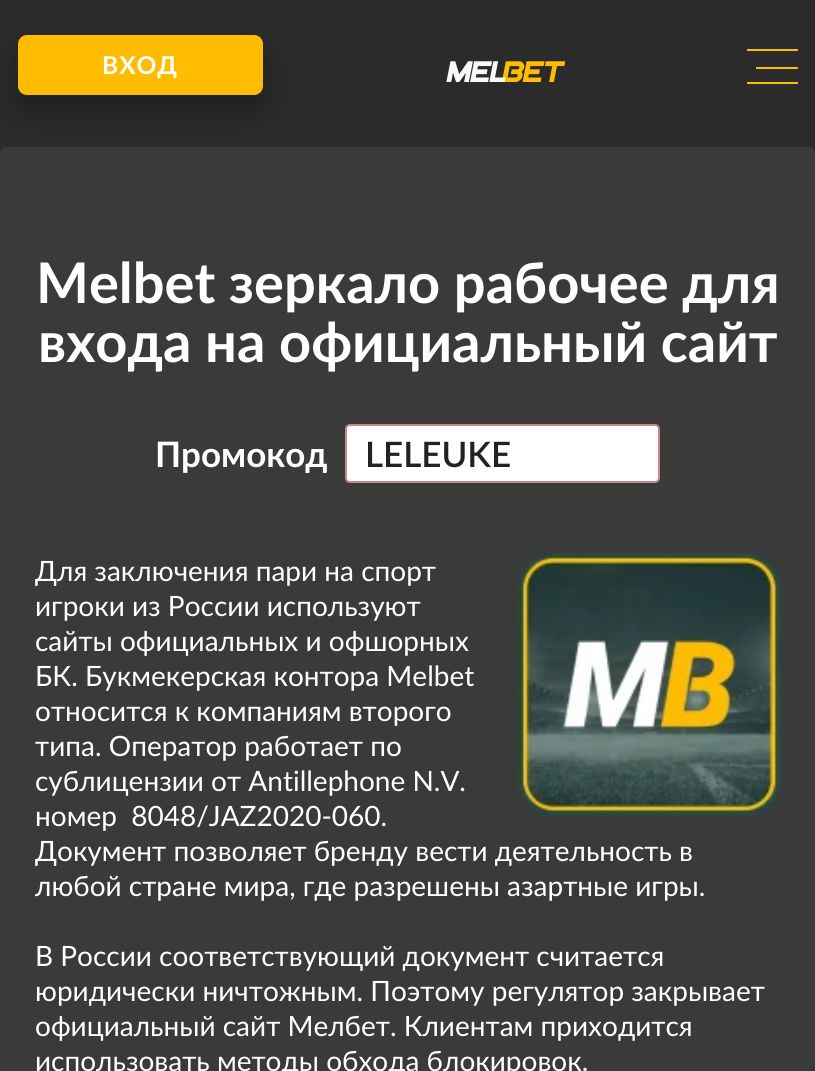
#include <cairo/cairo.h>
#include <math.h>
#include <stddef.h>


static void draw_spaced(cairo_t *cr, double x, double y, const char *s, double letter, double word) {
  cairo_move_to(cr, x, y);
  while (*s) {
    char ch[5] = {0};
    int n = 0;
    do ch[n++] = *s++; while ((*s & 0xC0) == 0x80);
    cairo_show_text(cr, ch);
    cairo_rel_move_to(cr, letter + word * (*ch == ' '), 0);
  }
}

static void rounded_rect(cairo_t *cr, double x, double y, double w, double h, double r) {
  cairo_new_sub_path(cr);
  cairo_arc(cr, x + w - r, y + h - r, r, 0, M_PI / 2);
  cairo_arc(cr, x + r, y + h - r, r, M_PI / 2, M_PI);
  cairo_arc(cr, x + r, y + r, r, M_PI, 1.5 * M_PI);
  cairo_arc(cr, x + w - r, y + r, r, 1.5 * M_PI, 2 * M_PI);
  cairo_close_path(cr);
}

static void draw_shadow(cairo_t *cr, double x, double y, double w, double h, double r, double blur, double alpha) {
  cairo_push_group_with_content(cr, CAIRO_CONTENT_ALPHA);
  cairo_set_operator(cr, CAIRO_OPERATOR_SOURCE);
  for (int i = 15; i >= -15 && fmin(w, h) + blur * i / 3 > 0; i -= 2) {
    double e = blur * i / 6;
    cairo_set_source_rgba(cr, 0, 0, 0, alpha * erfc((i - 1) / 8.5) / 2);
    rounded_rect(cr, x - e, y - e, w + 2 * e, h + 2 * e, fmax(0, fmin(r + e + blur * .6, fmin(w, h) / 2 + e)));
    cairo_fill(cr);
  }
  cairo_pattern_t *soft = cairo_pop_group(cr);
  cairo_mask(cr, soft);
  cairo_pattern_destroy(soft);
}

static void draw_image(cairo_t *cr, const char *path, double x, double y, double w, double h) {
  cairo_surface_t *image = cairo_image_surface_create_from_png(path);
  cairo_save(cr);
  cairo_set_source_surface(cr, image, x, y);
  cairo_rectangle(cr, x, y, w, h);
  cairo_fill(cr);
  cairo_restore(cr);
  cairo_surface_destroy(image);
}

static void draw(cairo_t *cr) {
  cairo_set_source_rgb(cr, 43 / 255.0, 43 / 255.0, 43 / 255.0);
  cairo_paint(cr);
  cairo_set_source_rgb(cr, 58 / 255.0, 58 / 255.0, 58 / 255.0);
  rounded_rect(cr, 0, 147, 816, 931, 7);
  cairo_fill(cr);
  cairo_set_source_rgb(cr, 0, 0, 0);
  draw_shadow(cr, 18, 53, 245, 59, 9, 17.5, 0.3);
  cairo_set_source_rgb(cr, 1, 188 / 255.0, 0);
  rounded_rect(cr, 18, 35, 245, 60, 9);
  cairo_fill(cr);
  draw_image(cr, "images/1.png", 446, 61, 119, 21);
  cairo_rectangle(cr, 747, 49, 51, 2);
  cairo_fill(cr);
  cairo_rectangle(cr, 756, 67, 42, 2);
  cairo_fill(cr);
  cairo_rectangle(cr, 747, 82, 51, 2);
  cairo_fill(cr);
  cairo_set_source_rgb(cr, 1, 1, 1);
  rounded_rect(cr, 346, 425, 313, 57, 4);
  cairo_fill_preserve(cr);
  cairo_set_source_rgb(cr, 204 / 255.0, 136 / 255.0, 135 / 255.0);
  cairo_stroke(cr);
  draw_image(cr, "images/2.png", 518, 553, 263, 263);
  cairo_select_font_face(cr, "Lato", CAIRO_FONT_SLANT_NORMAL, CAIRO_FONT_WEIGHT_BOLD);
  cairo_set_font_size(cr, 24.5);
  cairo_set_source_rgb(cr, 1, 1, 1);
  draw_spaced(cr, 102, 74, "ВХОД", 1, 0);
  cairo_set_font_size(cr, 56);
  cairo_move_to(cr, 36, 303);
  cairo_show_text(cr, "Melbet зеркало рабочее для");
  cairo_move_to(cr, 38, 362);
  cairo_show_text(cr, "входа на официальный сайт");
  cairo_set_font_size(cr, 35);
  cairo_move_to(cr, 155, 467);
  cairo_show_text(cr, "Промокод");
  cairo_select_font_face(cr, "Lato SemiBold", CAIRO_FONT_SLANT_NORMAL, CAIRO_FONT_WEIGHT_NORMAL);
  cairo_set_source_rgb(cr, 34 / 255.0, 34 / 255.0, 34 / 255.0);
  cairo_move_to(cr, 365, 467);
  cairo_show_text(cr, "LELEUKE");
  cairo_select_font_face(cr, "Lato", CAIRO_FONT_SLANT_NORMAL, CAIRO_FONT_WEIGHT_NORMAL);
  cairo_set_font_size(cr, 28);
  cairo_set_source_rgb(cr, 1, 1, 1);
  cairo_move_to(cr, 35, 581);
  cairo_show_text(cr, "Для заключения пари на спорт");
  cairo_move_to(cr, 35, 616);
  cairo_show_text(cr, "игроки из России используют");
  cairo_move_to(cr, 35, 651);
  cairo_show_text(cr, "сайты официальных и офшорных");
  cairo_move_to(cr, 35, 686);
  cairo_show_text(cr, "БК. Букмекерская контора Melbet");
  cairo_move_to(cr, 35, 721);
  cairo_show_text(cr, "относится к компаниям второго");
  cairo_move_to(cr, 35, 756);
  cairo_show_text(cr, "типа. Оператор работает по");
  cairo_move_to(cr, 35, 791);
  cairo_show_text(cr, "сублицензии от Antillephone N.V.");
  cairo_move_to(cr, 35, 826);
  cairo_show_text(cr, "номер  8048/JAZ2020-060.");
  cairo_move_to(cr, 35, 861);
  cairo_show_text(cr, "Документ позволяет бренду вести деятельность в");
  cairo_move_to(cr, 35, 896);
  cairo_show_text(cr, "любой стране мира, где разрешены азартные игры.");
  cairo_move_to(cr, 35, 966);
  cairo_show_text(cr, "В России соответствующий документ считается");
  cairo_move_to(cr, 35, 1001);
  cairo_show_text(cr, "юридически ничтожным. Поэтому регулятор закрывает");
  cairo_move_to(cr, 35, 1036);
  cairo_show_text(cr, "официальный сайт Мелбет. Клиентам приходится");
  cairo_move_to(cr, 35, 1071);
  cairo_show_text(cr, "использовать методы обхода блокировок.");
}

int main(void) {
  cairo_surface_t *surface = cairo_image_surface_create(CAIRO_FORMAT_RGB24, 815, 1071);
  cairo_t *cr = cairo_create(surface);
  cairo_font_options_t *options = cairo_font_options_create();
  cairo_font_options_set_hint_metrics(options, CAIRO_HINT_METRICS_OFF);
  cairo_font_options_set_hint_style(options, CAIRO_HINT_STYLE_NONE);
  cairo_set_font_options(cr, options);
  cairo_set_miter_limit(cr, 4);
  draw(cr);
  cairo_surface_write_to_png(surface, "out.png");
  cairo_font_options_destroy(options);
  cairo_destroy(cr);
  cairo_surface_destroy(surface);
  return 0;
}
